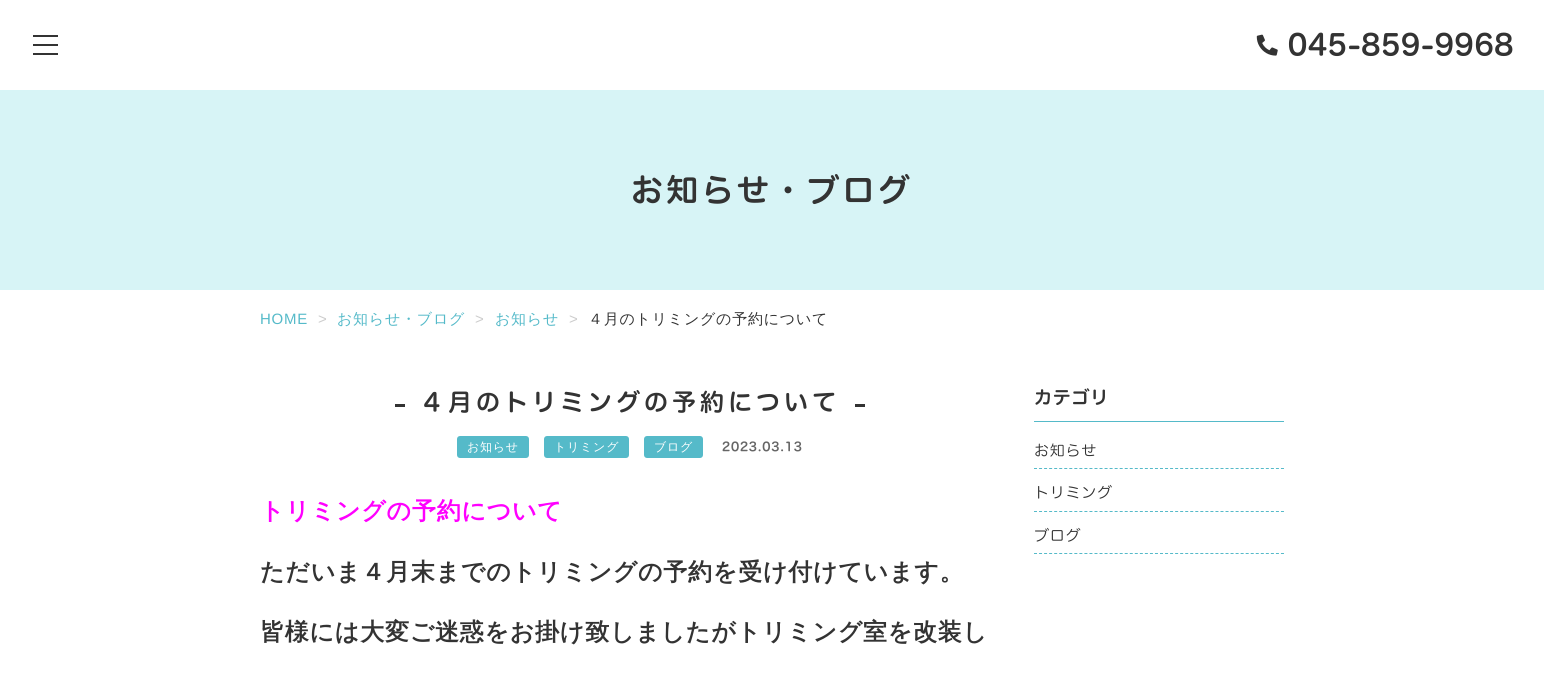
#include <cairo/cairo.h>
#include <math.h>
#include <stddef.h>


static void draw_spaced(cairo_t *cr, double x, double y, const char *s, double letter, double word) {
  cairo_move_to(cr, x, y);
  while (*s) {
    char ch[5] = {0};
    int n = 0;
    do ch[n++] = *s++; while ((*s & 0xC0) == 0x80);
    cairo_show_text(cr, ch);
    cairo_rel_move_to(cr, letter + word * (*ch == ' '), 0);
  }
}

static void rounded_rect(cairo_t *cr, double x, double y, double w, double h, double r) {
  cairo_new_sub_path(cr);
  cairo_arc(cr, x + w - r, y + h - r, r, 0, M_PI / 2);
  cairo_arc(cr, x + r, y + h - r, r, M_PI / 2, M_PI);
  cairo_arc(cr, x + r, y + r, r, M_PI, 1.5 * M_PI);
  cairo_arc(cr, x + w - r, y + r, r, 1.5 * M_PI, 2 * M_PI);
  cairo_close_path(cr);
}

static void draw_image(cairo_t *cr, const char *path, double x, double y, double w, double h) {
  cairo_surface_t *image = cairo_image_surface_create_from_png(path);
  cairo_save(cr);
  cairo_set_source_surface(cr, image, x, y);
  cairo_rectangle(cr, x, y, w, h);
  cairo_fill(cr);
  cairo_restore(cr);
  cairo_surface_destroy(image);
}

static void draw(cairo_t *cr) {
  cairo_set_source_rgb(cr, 1, 1, 1);
  cairo_paint(cr);
  cairo_set_source_rgb(cr, 51 / 255.0, 51 / 255.0, 51 / 255.0);
  cairo_rectangle(cr, 33, 35, 25, 2);
  cairo_fill(cr);
  cairo_rectangle(cr, 33, 44, 25, 2);
  cairo_fill(cr);
  cairo_rectangle(cr, 33, 53, 25, 2);
  cairo_fill(cr);
  draw_image(cr, "images/1.png", 1256, 34, 22, 22);
  cairo_set_source_rgb(cr, 215 / 255.0, 244 / 255.0, 246 / 255.0);
  cairo_rectangle(cr, 0, 90, 1544, 200);
  cairo_fill(cr);
  cairo_set_source_rgb(cr, 51 / 255.0, 51 / 255.0, 51 / 255.0);
  cairo_rectangle(cr, 395, 404, 10, 3);
  cairo_fill(cr);
  cairo_rectangle(cr, 855, 404, 10, 3);
  cairo_fill(cr);
  cairo_set_source_rgb(cr, 85 / 255.0, 186 / 255.0, 201 / 255.0);
  rounded_rect(cr, 457, 436, 72, 22, 3);
  cairo_fill(cr);
  rounded_rect(cr, 544, 436, 85, 22, 3);
  cairo_fill(cr);
  rounded_rect(cr, 644, 436, 59, 22, 3);
  cairo_fill(cr);
  cairo_rectangle(cr, 1034, 421, 250, 1);
  cairo_fill(cr);
  cairo_new_path(cr);
  cairo_move_to(cr, 1034, 468.5);
  cairo_line_to(cr, 1284, 468.5);
  cairo_set_line_width(cr, 1);
  cairo_set_dash(cr, (double[]){3, 2.04}, 2, 0);
  cairo_stroke(cr);
  cairo_new_path(cr);
  cairo_move_to(cr, 1034, 511.5);
  cairo_line_to(cr, 1284, 511.5);
  cairo_stroke(cr);
  cairo_new_path(cr);
  cairo_move_to(cr, 1034, 553.5);
  cairo_line_to(cr, 1284, 553.5);
  cairo_stroke(cr);
  cairo_select_font_face(cr, "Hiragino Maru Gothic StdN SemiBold", CAIRO_FONT_SLANT_NORMAL, CAIRO_FONT_WEIGHT_NORMAL);
  cairo_set_font_size(cr, 28);
  cairo_set_source_rgb(cr, 51 / 255.0, 51 / 255.0, 51 / 255.0);
  draw_spaced(cr, 1288, 55, "045-859-9968", 0.75, 0);
  cairo_set_font_size(cr, 32);
  draw_spaced(cr, 631, 202, "お知らせ・ブログ", 3.25, 0);
  cairo_select_font_face(cr, "Liberation Sans", CAIRO_FONT_SLANT_NORMAL, CAIRO_FONT_WEIGHT_NORMAL);
  cairo_set_font_size(cr, 15);
  cairo_set_source_rgb(cr, 85 / 255.0, 186 / 255.0, 201 / 255.0);
  draw_spaced(cr, 260, 324, "HOME", 0.75, 0);
  cairo_set_source_rgb(cr, 204 / 255.0, 204 / 255.0, 204 / 255.0);
  draw_spaced(cr, 318, 324, ">", 0.75, 0);
  cairo_select_font_face(cr, "WenQuanYi Zen Hei Medium", CAIRO_FONT_SLANT_NORMAL, CAIRO_FONT_WEIGHT_NORMAL);
  cairo_set_source_rgb(cr, 85 / 255.0, 186 / 255.0, 201 / 255.0);
  draw_spaced(cr, 337, 324, "お知らせ・ブログ", 0.75, 0);
  cairo_select_font_face(cr, "Liberation Sans", CAIRO_FONT_SLANT_NORMAL, CAIRO_FONT_WEIGHT_NORMAL);
  cairo_set_source_rgb(cr, 204 / 255.0, 204 / 255.0, 204 / 255.0);
  draw_spaced(cr, 475, 324, ">", 0.75, 0);
  cairo_select_font_face(cr, "WenQuanYi Zen Hei Medium", CAIRO_FONT_SLANT_NORMAL, CAIRO_FONT_WEIGHT_NORMAL);
  cairo_set_source_rgb(cr, 85 / 255.0, 186 / 255.0, 201 / 255.0);
  draw_spaced(cr, 495, 324, "お知らせ", 0.75, 0);
  cairo_select_font_face(cr, "Liberation Sans", CAIRO_FONT_SLANT_NORMAL, CAIRO_FONT_WEIGHT_NORMAL);
  cairo_set_source_rgb(cr, 204 / 255.0, 204 / 255.0, 204 / 255.0);
  draw_spaced(cr, 569, 324, ">", 0.75, 0);
  cairo_select_font_face(cr, "WenQuanYi Zen Hei Medium", CAIRO_FONT_SLANT_NORMAL, CAIRO_FONT_WEIGHT_NORMAL);
  cairo_set_source_rgb(cr, 51 / 255.0, 51 / 255.0, 51 / 255.0);
  draw_spaced(cr, 588, 324, "４月のトリミングの予約について", 0.75, 0);
  cairo_select_font_face(cr, "Hiragino Maru Gothic StdN SemiBold", CAIRO_FONT_SLANT_NORMAL, CAIRO_FONT_WEIGHT_NORMAL);
  cairo_set_font_size(cr, 24);
  draw_spaced(cr, 420, 411, "４月のトリミングの予約について", 4, 0);
  cairo_select_font_face(cr, "WenQuanYi Zen Hei Medium", CAIRO_FONT_SLANT_NORMAL, CAIRO_FONT_WEIGHT_NORMAL);
  cairo_set_font_size(cr, 12);
  cairo_set_source_rgb(cr, 1, 1, 1);
  draw_spaced(cr, 467, 451, "お知らせ", 0.75, 0);
  draw_spaced(cr, 554, 451, "トリミング", 0.75, 0);
  draw_spaced(cr, 654, 451, "ブログ", 0.75, 0);
  cairo_select_font_face(cr, "Hiragino Maru Gothic StdN SemiBold", CAIRO_FONT_SLANT_NORMAL, CAIRO_FONT_WEIGHT_NORMAL);
  cairo_set_source_rgb(cr, 102 / 255.0, 102 / 255.0, 102 / 255.0);
  draw_spaced(cr, 722, 451, "2023.03.13", 0.75, 0);
  cairo_select_font_face(cr, "WenQuanYi Zen Hei", CAIRO_FONT_SLANT_NORMAL, CAIRO_FONT_WEIGHT_BOLD);
  cairo_set_font_size(cr, 24);
  cairo_set_source_rgb(cr, 1, 0, 1);
  draw_spaced(cr, 260, 519, "トリミングの予約について", 0.75, 0);
  cairo_set_source_rgb(cr, 51 / 255.0, 51 / 255.0, 51 / 255.0);
  draw_spaced(cr, 260, 580, "ただいま４月末までのトリミングの予約を受け付けています。", 0.75, 0);
  draw_spaced(cr, 260, 640, "皆様には大変ご迷惑をお掛け致しましたがトリミング室を改装し", 0.75, 0);
  cairo_select_font_face(cr, "Hiragino Maru Gothic StdN SemiBold", CAIRO_FONT_SLANT_NORMAL, CAIRO_FONT_WEIGHT_NORMAL);
  cairo_set_font_size(cr, 18);
  draw_spaced(cr, 1034, 404, "カテゴリ", 0.75, 0);
  cairo_select_font_face(cr, "Hiragino Maru Gothic StdN Light", CAIRO_FONT_SLANT_NORMAL, CAIRO_FONT_WEIGHT_NORMAL);
  cairo_set_font_size(cr, 15);
  draw_spaced(cr, 1034, 456, "お知らせ", 0.75, 0);
  draw_spaced(cr, 1034, 498, "トリミング", 0.75, 0);
  draw_spaced(cr, 1034, 541, "ブログ", 0.75, 0);
}

int main(void) {
  cairo_surface_t *surface = cairo_image_surface_create(CAIRO_FORMAT_RGB24, 1544, 680);
  cairo_t *cr = cairo_create(surface);
  cairo_font_options_t *options = cairo_font_options_create();
  cairo_font_options_set_hint_metrics(options, CAIRO_HINT_METRICS_OFF);
  cairo_font_options_set_hint_style(options, CAIRO_HINT_STYLE_NONE);
  cairo_set_font_options(cr, options);
  cairo_set_miter_limit(cr, 4);
  draw(cr);
  cairo_surface_write_to_png(surface, "out.png");
  cairo_font_options_destroy(options);
  cairo_destroy(cr);
  cairo_surface_destroy(surface);
  return 0;
}
